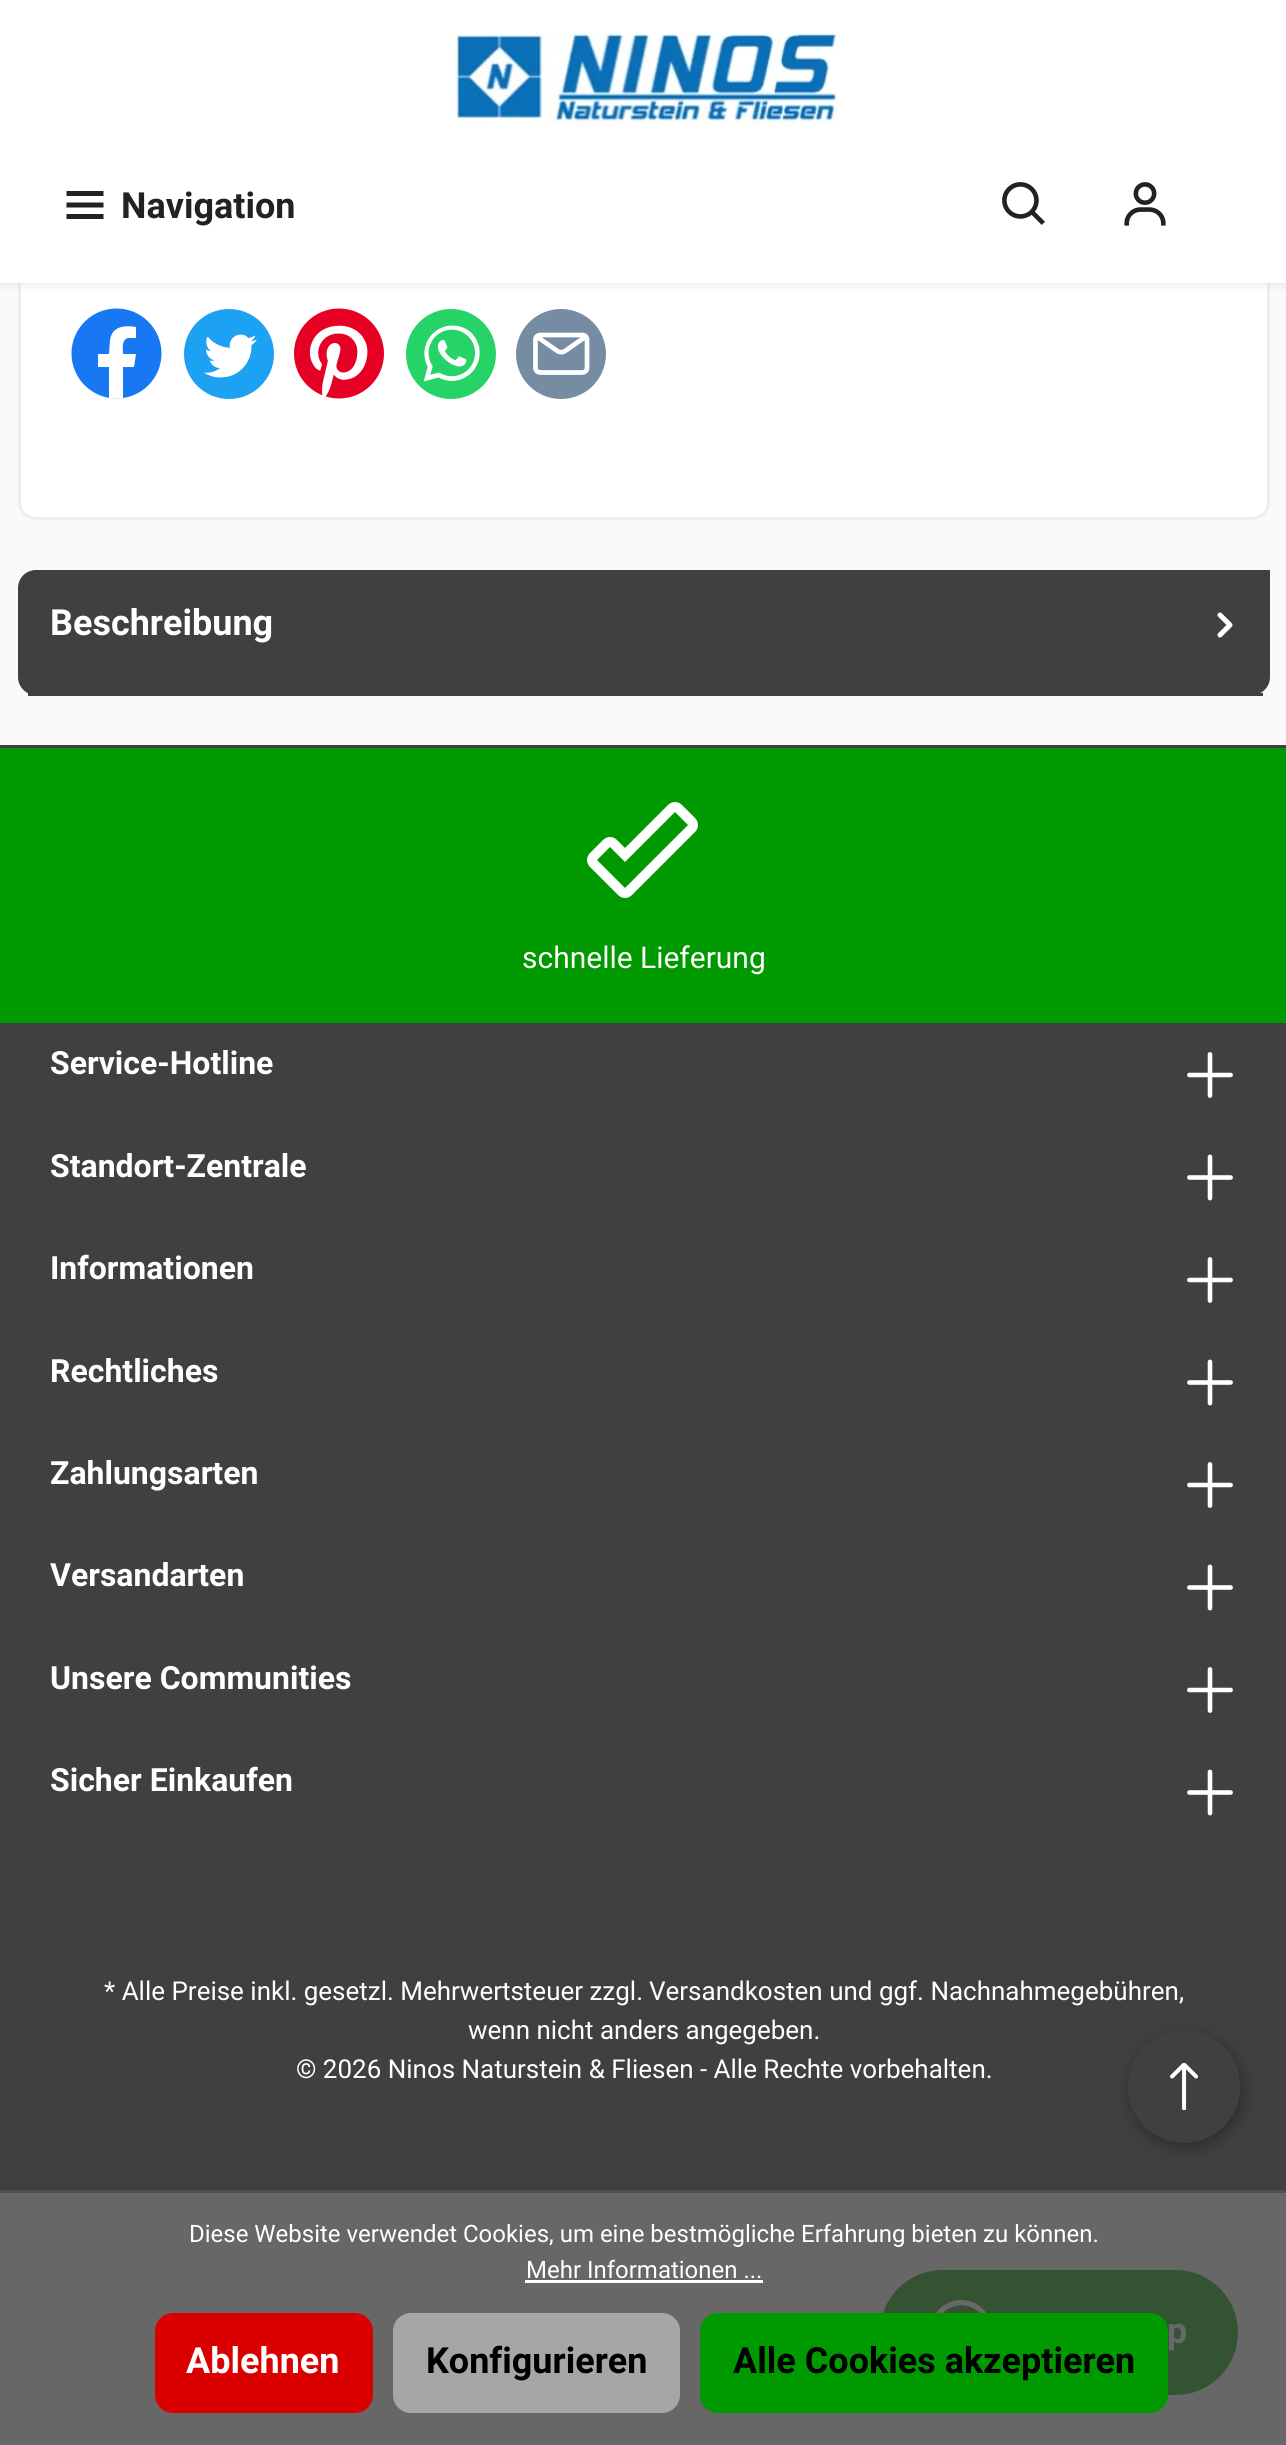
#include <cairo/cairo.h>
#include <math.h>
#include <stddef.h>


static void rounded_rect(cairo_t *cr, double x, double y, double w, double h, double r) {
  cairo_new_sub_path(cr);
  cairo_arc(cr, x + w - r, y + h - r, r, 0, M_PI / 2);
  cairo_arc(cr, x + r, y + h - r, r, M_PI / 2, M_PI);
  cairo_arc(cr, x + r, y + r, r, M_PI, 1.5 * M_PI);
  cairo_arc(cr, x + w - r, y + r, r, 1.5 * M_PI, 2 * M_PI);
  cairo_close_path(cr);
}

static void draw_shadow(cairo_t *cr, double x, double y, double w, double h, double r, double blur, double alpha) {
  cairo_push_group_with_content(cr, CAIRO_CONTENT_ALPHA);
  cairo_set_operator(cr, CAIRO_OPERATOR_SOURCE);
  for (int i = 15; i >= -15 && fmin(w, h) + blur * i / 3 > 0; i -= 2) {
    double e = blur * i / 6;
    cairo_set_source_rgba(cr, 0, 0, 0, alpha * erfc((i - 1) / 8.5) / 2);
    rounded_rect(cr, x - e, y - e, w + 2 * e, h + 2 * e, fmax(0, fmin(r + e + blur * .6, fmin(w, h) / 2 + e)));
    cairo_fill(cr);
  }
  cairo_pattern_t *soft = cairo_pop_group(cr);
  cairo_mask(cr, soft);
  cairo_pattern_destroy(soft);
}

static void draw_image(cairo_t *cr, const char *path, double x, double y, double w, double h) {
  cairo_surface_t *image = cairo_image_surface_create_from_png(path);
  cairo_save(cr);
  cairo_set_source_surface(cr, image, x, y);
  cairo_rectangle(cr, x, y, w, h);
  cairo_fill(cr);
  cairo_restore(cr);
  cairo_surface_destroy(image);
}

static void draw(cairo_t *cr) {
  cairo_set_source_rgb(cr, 250 / 255.0, 250 / 255.0, 250 / 255.0);
  cairo_paint(cr);
  cairo_set_source_rgb(cr, 103 / 255.0, 103 / 255.0, 103 / 255.0);
  cairo_rectangle(cr, 0, 2193, 1286, 252);
  cairo_fill(cr);
  cairo_set_source_rgb(cr, 1, 1, 1);
  rounded_rect(cr, 19.5, -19.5, 1249, 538, 16.5);
  cairo_fill_preserve(cr);
  cairo_set_source_rgb(cr, 238 / 255.0, 238 / 255.0, 238 / 255.0);
  cairo_set_line_width(cr, 3);
  cairo_stroke(cr);
  cairo_set_source_rgb(cr, 0, 0, 0);
  draw_shadow(cr, 0, 0, 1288, 283, 0, 6, 0.1);
  cairo_set_source_rgb(cr, 1, 1, 1);
  cairo_rectangle(cr, 0, 0, 1286, 283);
  cairo_fill(cr);
  draw_image(cr, "images/1.png", 454, 32, 385, 96);
  cairo_set_source_rgb(cr, 34 / 255.0, 34 / 255.0, 34 / 255.0);
  cairo_new_path(cr);
  cairo_move_to(cr, 66.5, 191);
  cairo_line_to(cr, 103.5, 191);
  cairo_line_to(cr, 103.5, 196);
  cairo_line_to(cr, 66.5, 196);
  cairo_close_path(cr);
  cairo_move_to(cr, 66.5, 202.5);
  cairo_line_to(cr, 103.5, 202.5);
  cairo_line_to(cr, 103.5, 207.5);
  cairo_line_to(cr, 66.5, 207.5);
  cairo_close_path(cr);
  cairo_move_to(cr, 66.5, 214);
  cairo_line_to(cr, 103.5, 214);
  cairo_line_to(cr, 103.5, 219);
  cairo_line_to(cr, 66.5, 219);
  cairo_close_path(cr);
  cairo_fill(cr);
  draw_image(cr, "images/2.png", 1002, 182, 43, 43);
  draw_image(cr, "images/3.png", 1124, 182, 42, 44);
  cairo_set_source_rgb(cr, 24 / 255.0, 119 / 255.0, 242 / 255.0);
  cairo_arc(cr, 116.5, 353.5, 45, 0, 2 * M_PI);
  cairo_fill(cr);
  cairo_set_source_rgb(cr, 1, 1, 1);
  cairo_new_path(cr);
  cairo_move_to(cr, 134, 367);
  cairo_line_to(cr, 136, 354);
  cairo_line_to(cr, 123, 354);
  cairo_curve_to(cr, 123, 349, 121, 340, 128, 338);
  cairo_line_to(cr, 136, 338);
  cairo_line_to(cr, 136, 327);
  cairo_curve_to(cr, 125, 325, 112, 326, 110, 340);
  cairo_line_to(cr, 109, 354);
  cairo_line_to(cr, 98, 354);
  cairo_line_to(cr, 98, 367);
  cairo_line_to(cr, 109, 367);
  cairo_line_to(cr, 109, 398);
  cairo_curve_to(cr, 114, 399, 119, 399, 123, 398);
  cairo_line_to(cr, 123, 367);
  cairo_close_path(cr);
  cairo_fill(cr);
  draw_image(cr, "images/4.png", 184, 309, 90, 90);
  draw_image(cr, "images/5.png", 294, 308, 90, 91);
  draw_image(cr, "images/6.png", 406, 309, 90, 90);
  draw_image(cr, "images/7.png", 516, 309, 90, 90);
  cairo_new_path(cr);
  cairo_move_to(cr, 41, 571.5);
  cairo_line_to(cr, 1252, 571.5);
  cairo_curve_to(cr, 1261, 571.5, 1268.5, 579, 1268.5, 588);
  cairo_line_to(cr, 1268.5, 677);
  cairo_curve_to(cr, 1268.5, 686, 1261, 693.5, 1252, 693.5);
  cairo_line_to(cr, 36, 693.5);
  cairo_curve_to(cr, 27, 693.5, 19.5, 686, 19.5, 677);
  cairo_line_to(cr, 19.5, 593);
  cairo_curve_to(cr, 19.5, 581, 29, 571.5, 41, 571.5);
  cairo_close_path(cr);
  cairo_set_source_rgb(cr, 238 / 255.0, 238 / 255.0, 238 / 255.0);
  cairo_stroke(cr);
  cairo_set_source_rgb(cr, 64 / 255.0, 64 / 255.0, 64 / 255.0);
  cairo_new_path(cr);
  cairo_move_to(cr, 36, 570);
  cairo_line_to(cr, 1270, 570);
  cairo_line_to(cr, 1270, 677);
  cairo_curve_to(cr, 1270, 687, 1262, 695, 1252, 695);
  cairo_line_to(cr, 36, 695);
  cairo_curve_to(cr, 26, 695, 18, 687, 18, 677);
  cairo_line_to(cr, 18, 588);
  cairo_curve_to(cr, 18, 578, 26, 570, 36, 570);
  cairo_close_path(cr);
  cairo_fill(cr);
  cairo_rectangle(cr, 28, 693, 1235, 3);
  cairo_fill(cr);
  draw_image(cr, "images/8.png", 1217, 612, 16, 26);
  cairo_set_source_rgb(cr, 0, 153 / 255.0, 0);
  cairo_rectangle(cr, 0, 748, 1286, 275);
  cairo_fill(cr);
  cairo_set_source_rgb(cr, 64 / 255.0, 64 / 255.0, 64 / 255.0);
  cairo_rectangle(cr, 0, 745, 1286, 3);
  cairo_fill(cr);
  cairo_set_source_rgb(cr, 1, 1, 1);
  cairo_set_fill_rule(cr, CAIRO_FILL_RULE_EVEN_ODD);
  cairo_new_path(cr);
  cairo_move_to(cr, 625, 848);
  cairo_line_to(cr, 668, 805);
  cairo_curve_to(cr, 672, 801, 678, 801, 682, 805);
  cairo_line_to(cr, 695, 818);
  cairo_curve_to(cr, 699, 822, 699, 828, 695, 832);
  cairo_line_to(cr, 632, 895);
  cairo_curve_to(cr, 628, 899, 622, 899, 618, 895);
  cairo_line_to(cr, 590, 867);
  cairo_curve_to(cr, 586, 863, 586, 857, 590, 853);
  cairo_line_to(cr, 603, 840);
  cairo_curve_to(cr, 607, 836, 613, 836, 617, 840);
  cairo_close_path(cr);
  cairo_move_to(cr, 597, 860);
  cairo_line_to(cr, 625, 888);
  cairo_line_to(cr, 688, 825);
  cairo_line_to(cr, 675, 812);
  cairo_line_to(cr, 625, 862);
  cairo_line_to(cr, 610, 847);
  cairo_close_path(cr);
  cairo_fill(cr);
  cairo_set_source_rgb(cr, 64 / 255.0, 64 / 255.0, 64 / 255.0);
  cairo_rectangle(cr, 0, 1023, 1286, 1167);
  cairo_fill(cr);
  draw_image(cr, "images/9.png", 1187, 1052, 46, 46);
  draw_image(cr, "images/10.png", 1187, 1154, 46, 47);
  draw_image(cr, "images/9.png", 1187, 1257, 46, 46);
  draw_image(cr, "images/10.png", 1187, 1359, 46, 47);
  draw_image(cr, "images/9.png", 1187, 1462, 46, 46);
  draw_image(cr, "images/10.png", 1187, 1564, 46, 47);
  draw_image(cr, "images/9.png", 1187, 1667, 46, 46);
  draw_image(cr, "images/10.png", 1187, 1769, 46, 47);
  cairo_set_source_rgb(cr, 0, 0, 0);
  draw_shadow(cr, 1130, 2035, 113, 113, 56.5, 7.5, 0.3);
  cairo_set_source_rgb(cr, 64 / 255.0, 64 / 255.0, 64 / 255.0);
  rounded_rect(cr, 1129.5, 2031.5, 109, 110, 54.5);
  cairo_fill_preserve(cr);
  cairo_stroke(cr);
  draw_image(cr, "images/11.png", 1170, 2063, 29, 47);
  cairo_set_source_rgb(cr, 78 / 255.0, 78 / 255.0, 78 / 255.0);
  cairo_rectangle(cr, 0, 2190, 1286, 3);
  cairo_fill(cr);
  cairo_set_source_rgb(cr, 1, 1, 1);
  cairo_rectangle(cr, 525, 2280, 238, 3);
  cairo_fill(cr);
  cairo_set_source_rgb(cr, 219 / 255.0, 0, 0);
  rounded_rect(cr, 156.5, 2314.5, 215, 97, 16.5);
  cairo_fill_preserve(cr);
  cairo_stroke(cr);
  cairo_set_source_rgb(cr, 166 / 255.0, 166 / 255.0, 166 / 255.0);
  rounded_rect(cr, 394.5, 2314.5, 284, 97, 16.5);
  cairo_fill_preserve(cr);
  cairo_stroke(cr);
  cairo_set_source_rgb(cr, 51 / 255.0, 83 / 255.0, 51 / 255.0);
  rounded_rect(cr, 880, 2270, 358, 125, 62.5);
  cairo_fill(cr);
  cairo_set_source_rgb(cr, 0, 153 / 255.0, 0);
  rounded_rect(cr, 701.5, 2314.5, 465, 97, 16.5);
  cairo_fill_preserve(cr);
  cairo_stroke(cr);
  draw_image(cr, "images/12.png", 936, 2300, 51, 13);
  cairo_select_font_face(cr, "Roboto", CAIRO_FONT_SLANT_NORMAL, CAIRO_FONT_WEIGHT_BOLD);
  cairo_set_font_size(cr, 36);
  cairo_set_source_rgb(cr, 34 / 255.0, 34 / 255.0, 34 / 255.0);
  cairo_move_to(cr, 121, 218);
  cairo_show_text(cr, "Navigation");
  cairo_set_source_rgb(cr, 1, 1, 1);
  cairo_move_to(cr, 50, 635);
  cairo_show_text(cr, "Beschreibung");
  cairo_select_font_face(cr, "Roboto", CAIRO_FONT_SLANT_NORMAL, CAIRO_FONT_WEIGHT_NORMAL);
  cairo_set_font_size(cr, 30);
  cairo_move_to(cr, 522, 968);
  cairo_show_text(cr, "schnelle Lieferung");
  cairo_select_font_face(cr, "Roboto", CAIRO_FONT_SLANT_NORMAL, CAIRO_FONT_WEIGHT_BOLD);
  cairo_set_font_size(cr, 32);
  cairo_move_to(cr, 50, 1074);
  cairo_show_text(cr, "Service-Hotline");
  cairo_move_to(cr, 50, 1177);
  cairo_show_text(cr, "Standort-Zentrale");
  cairo_move_to(cr, 50, 1279);
  cairo_show_text(cr, "Informationen");
  cairo_move_to(cr, 50, 1382);
  cairo_show_text(cr, "Rechtliches");
  cairo_move_to(cr, 50, 1484);
  cairo_show_text(cr, "Zahlungsarten");
  cairo_move_to(cr, 50, 1586);
  cairo_show_text(cr, "Versandarten");
  cairo_move_to(cr, 50, 1689);
  cairo_show_text(cr, "Unsere Communities");
  cairo_move_to(cr, 50, 1791);
  cairo_show_text(cr, "Sicher Einkaufen");
  cairo_select_font_face(cr, "Roboto", CAIRO_FONT_SLANT_NORMAL, CAIRO_FONT_WEIGHT_NORMAL);
  cairo_set_font_size(cr, 26);
  cairo_move_to(cr, 104, 2000);
  cairo_show_text(cr, "* Alle Preise inkl. gesetzl. Mehrwertsteuer zzgl.");
  cairo_move_to(cr, 649, 2000);
  cairo_show_text(cr, "Versandkosten und ggf. Nachnahmegebühren,");
  cairo_move_to(cr, 468, 2039);
  cairo_show_text(cr, "wenn nicht anders angegeben.");
  cairo_move_to(cr, 296, 2078);
  cairo_show_text(cr, "© 2026 Ninos Naturstein & Fliesen - Alle Rechte vorbehalten.");
  cairo_set_font_size(cr, 24);
  cairo_move_to(cr, 189, 2242);
  cairo_show_text(cr, "Diese Website verwendet Cookies, um eine bestmögliche Erfahrung bieten zu können.");
  cairo_move_to(cr, 526, 2278);
  cairo_show_text(cr, "Mehr Informationen ...");
  cairo_select_font_face(cr, "Roboto", CAIRO_FONT_SLANT_NORMAL, CAIRO_FONT_WEIGHT_BOLD);
  cairo_set_font_size(cr, 36);
  cairo_move_to(cr, 186, 2373);
  cairo_show_text(cr, "Ablehnen");
  cairo_set_source_rgb(cr, 0, 0, 0);
  cairo_move_to(cr, 426, 2373);
  cairo_show_text(cr, "Konfigurieren");
  cairo_move_to(cr, 733, 2373);
  cairo_show_text(cr, "Alle Cookies akzeptieren");
  cairo_set_source_rgb(cr, 104 / 255.0, 104 / 255.0, 104 / 255.0);
  cairo_move_to(cr, 1167, 2343);
  cairo_show_text(cr, "p");
}

int main(void) {
  cairo_surface_t *surface = cairo_image_surface_create(CAIRO_FORMAT_RGB24, 1286, 2445);
  cairo_t *cr = cairo_create(surface);
  cairo_font_options_t *options = cairo_font_options_create();
  cairo_font_options_set_hint_metrics(options, CAIRO_HINT_METRICS_OFF);
  cairo_font_options_set_hint_style(options, CAIRO_HINT_STYLE_NONE);
  cairo_set_font_options(cr, options);
  cairo_set_miter_limit(cr, 4);
  draw(cr);
  cairo_surface_write_to_png(surface, "out.png");
  cairo_font_options_destroy(options);
  cairo_destroy(cr);
  cairo_surface_destroy(surface);
  return 0;
}
